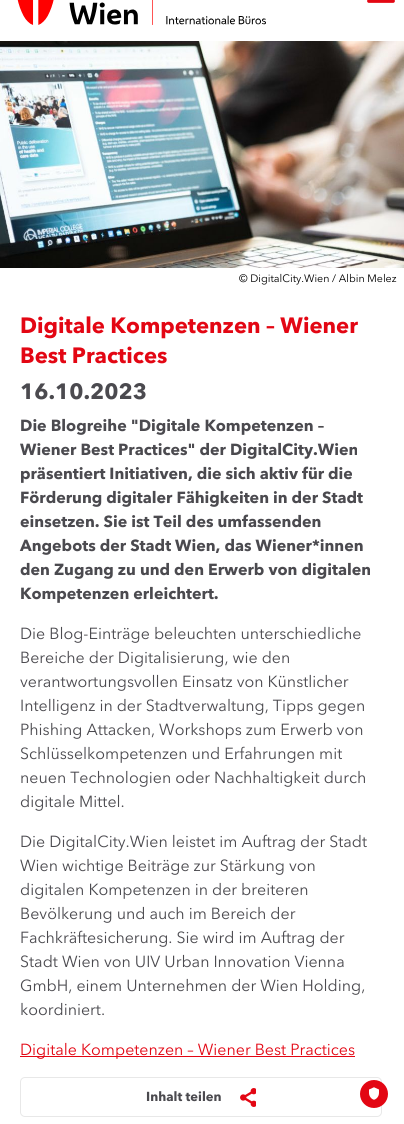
#include <cairo/cairo.h>
#include <math.h>
#include <stddef.h>


static void rounded_rect(cairo_t *cr, double x, double y, double w, double h, double r) {
  cairo_new_sub_path(cr);
  cairo_arc(cr, x + w - r, y + h - r, r, 0, M_PI / 2);
  cairo_arc(cr, x + r, y + h - r, r, M_PI / 2, M_PI);
  cairo_arc(cr, x + r, y + r, r, M_PI, 1.5 * M_PI);
  cairo_arc(cr, x + w - r, y + r, r, 1.5 * M_PI, 2 * M_PI);
  cairo_close_path(cr);
}

static void draw_image(cairo_t *cr, const char *path, double x, double y, double w, double h) {
  cairo_surface_t *image = cairo_image_surface_create_from_png(path);
  cairo_save(cr);
  cairo_set_source_surface(cr, image, x, y);
  cairo_rectangle(cr, x, y, w, h);
  cairo_fill(cr);
  cairo_restore(cr);
  cairo_surface_destroy(image);
}

static void draw(cairo_t *cr) {
  cairo_set_source_rgb(cr, 1, 1, 1);
  cairo_paint(cr);
  draw_image(cr, "images/1.png", 17, 0, 249, 25);
  cairo_new_path(cr);
  cairo_move_to(cr, 369, 1);
  cairo_line_to(cr, 393, 1);
  cairo_set_source_rgb(cr, 227 / 255.0, 6 / 255.0, 19 / 255.0);
  cairo_set_line_width(cr, 3.8);
  cairo_set_line_cap(cr, CAIRO_LINE_CAP_ROUND);
  cairo_stroke(cr);
  draw_image(cr, "images/2.png", 0, 41, 404, 227);
  cairo_rectangle(cr, 20, 1056, 335, 1);
  cairo_fill(cr);
  rounded_rect(cr, 20.5, 1077.5, 361, 39, 4.5);
  cairo_set_source_rgb(cr, 232 / 255.0, 232 / 255.0, 232 / 255.0);
  cairo_set_line_width(cr, 1);
  cairo_set_line_cap(cr, CAIRO_LINE_CAP_BUTT);
  cairo_stroke(cr);
  draw_image(cr, "images/3.png", 240, 1088, 16, 19);
  cairo_set_source_rgb(cr, 227 / 255.0, 6 / 255.0, 19 / 255.0);
  cairo_arc(cr, 374, 1094, 14, 0, 2 * M_PI);
  cairo_fill(cr);
  draw_image(cr, "images/4.png", 369, 1087, 10, 13);
  cairo_select_font_face(cr, "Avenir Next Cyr", CAIRO_FONT_SLANT_NORMAL, CAIRO_FONT_WEIGHT_NORMAL);
  cairo_set_font_size(cr, 10.7);
  cairo_set_source_rgb(cr, 0, 0, 0);
  cairo_move_to(cr, 239, 282);
  cairo_show_text(cr, "© DigitalCity.Wien / Albin Melez");
  cairo_select_font_face(cr, "Avenir Next Cyr", CAIRO_FONT_SLANT_NORMAL, CAIRO_FONT_WEIGHT_BOLD);
  cairo_set_font_size(cr, 22);
  cairo_set_source_rgb(cr, 227 / 255.0, 6 / 255.0, 19 / 255.0);
  cairo_move_to(cr, 20, 333);
  cairo_show_text(cr, "Digitale Kompetenzen – Wiener");
  cairo_move_to(cr, 20, 363);
  cairo_show_text(cr, "Best Practices");
  cairo_set_source_rgb(cr, 75 / 255.0, 74 / 255.0, 79 / 255.0);
  cairo_move_to(cr, 20, 399);
  cairo_show_text(cr, "16.10.2023");
  cairo_set_font_size(cr, 16);
  cairo_move_to(cr, 20, 431);
  cairo_show_text(cr, "Die Blogreihe \"Digitale Kompetenzen –");
  cairo_move_to(cr, 20, 455);
  cairo_show_text(cr, "Wiener Best Practices\" der DigitalCity.Wien");
  cairo_move_to(cr, 20, 479);
  cairo_show_text(cr, "präsentiert Initiativen, die sich aktiv für die");
  cairo_move_to(cr, 20, 503);
  cairo_show_text(cr, "Förderung digitaler Fähigkeiten in der Stadt");
  cairo_move_to(cr, 20, 527);
  cairo_show_text(cr, "einsetzen. Sie ist Teil des umfassenden");
  cairo_move_to(cr, 20, 551);
  cairo_show_text(cr, "Angebots der Stadt Wien, das Wiener*innen");
  cairo_move_to(cr, 20, 575);
  cairo_show_text(cr, "den Zugang zu und den Erwerb von digitalen");
  cairo_move_to(cr, 20, 599);
  cairo_show_text(cr, "Kompetenzen erleichtert.");
  cairo_select_font_face(cr, "Avenir Next Cyr", CAIRO_FONT_SLANT_NORMAL, CAIRO_FONT_WEIGHT_NORMAL);
  cairo_move_to(cr, 20, 639);
  cairo_show_text(cr, "Die Blog-Einträge beleuchten unterschiedliche");
  cairo_move_to(cr, 20, 663);
  cairo_show_text(cr, "Bereiche der Digitalisierung, wie den");
  cairo_move_to(cr, 20, 687);
  cairo_show_text(cr, "verantwortungsvollen Einsatz von Künstlicher");
  cairo_move_to(cr, 20, 711);
  cairo_show_text(cr, "Intelligenz in der Stadtverwaltung, Tipps gegen");
  cairo_move_to(cr, 20, 735);
  cairo_show_text(cr, "Phishing Attacken, Workshops zum Erwerb von");
  cairo_move_to(cr, 20, 759);
  cairo_show_text(cr, "Schlüsselkompetenzen und Erfahrungen mit");
  cairo_move_to(cr, 20, 783);
  cairo_show_text(cr, "neuen Technologien oder Nachhaltigkeit durch");
  cairo_move_to(cr, 20, 807);
  cairo_show_text(cr, "digitale Mittel.");
  cairo_move_to(cr, 20, 847);
  cairo_show_text(cr, "Die DigitalCity.Wien leistet im Auftrag der Stadt");
  cairo_move_to(cr, 20, 871);
  cairo_show_text(cr, "Wien wichtige Beiträge zur Stärkung von");
  cairo_move_to(cr, 20, 895);
  cairo_show_text(cr, "digitalen Kompetenzen in der breiteren");
  cairo_move_to(cr, 20, 919);
  cairo_show_text(cr, "Bevölkerung und auch im Bereich der");
  cairo_move_to(cr, 20, 943);
  cairo_show_text(cr, "Fachkräftesicherung. Sie wird im Auftrag der");
  cairo_move_to(cr, 20, 967);
  cairo_show_text(cr, "Stadt Wien von UIV Urban Innovation Vienna");
  cairo_move_to(cr, 20, 991);
  cairo_show_text(cr, "GmbH, einem Unternehmen der Wien Holding,");
  cairo_move_to(cr, 20, 1015);
  cairo_show_text(cr, "koordiniert.");
  cairo_set_source_rgb(cr, 227 / 255.0, 6 / 255.0, 19 / 255.0);
  cairo_move_to(cr, 20, 1055);
  cairo_show_text(cr, "Digitale Kompetenzen – Wiener Best Practices");
  cairo_select_font_face(cr, "Avenir Next Cyr", CAIRO_FONT_SLANT_NORMAL, CAIRO_FONT_WEIGHT_BOLD);
  cairo_set_font_size(cr, 13);
  cairo_set_source_rgb(cr, 75 / 255.0, 74 / 255.0, 79 / 255.0);
  cairo_move_to(cr, 146, 1101);
  cairo_show_text(cr, "Inhalt teilen");
}

int main(void) {
  cairo_surface_t *surface = cairo_image_surface_create(CAIRO_FORMAT_RGB24, 404, 1124);
  cairo_t *cr = cairo_create(surface);
  cairo_font_options_t *options = cairo_font_options_create();
  cairo_font_options_set_hint_metrics(options, CAIRO_HINT_METRICS_OFF);
  cairo_font_options_set_hint_style(options, CAIRO_HINT_STYLE_NONE);
  cairo_set_font_options(cr, options);
  cairo_set_miter_limit(cr, 4);
  draw(cr);
  cairo_surface_write_to_png(surface, "out.png");
  cairo_font_options_destroy(options);
  cairo_destroy(cr);
  cairo_surface_destroy(surface);
  return 0;
}
